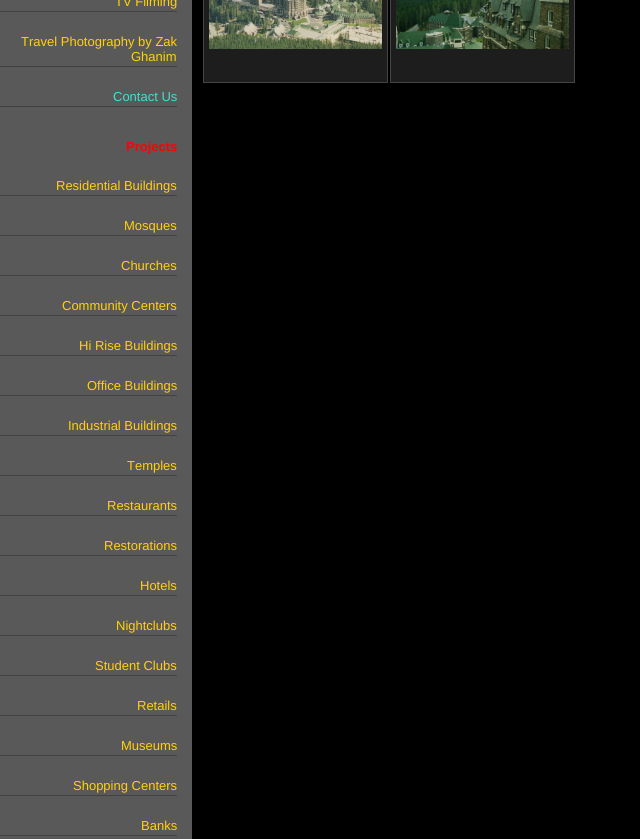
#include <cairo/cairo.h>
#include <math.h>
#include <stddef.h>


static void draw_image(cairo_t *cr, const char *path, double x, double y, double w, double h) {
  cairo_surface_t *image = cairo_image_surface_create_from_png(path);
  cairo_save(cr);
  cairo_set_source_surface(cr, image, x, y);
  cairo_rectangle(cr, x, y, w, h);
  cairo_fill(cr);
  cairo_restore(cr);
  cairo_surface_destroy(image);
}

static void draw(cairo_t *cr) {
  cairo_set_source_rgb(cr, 0, 0, 0);
  cairo_paint(cr);
  cairo_set_source_rgb(cr, 89 / 255.0, 89 / 255.0, 89 / 255.0);
  cairo_rectangle(cr, 0, 0, 192, 839);
  cairo_fill(cr);
  cairo_set_source_rgb(cr, 65 / 255.0, 65 / 255.0, 65 / 255.0);
  cairo_rectangle(cr, 0, 11, 177, 1);
  cairo_fill(cr);
  cairo_rectangle(cr, 0, 66, 177, 1);
  cairo_fill(cr);
  cairo_rectangle(cr, 0, 106, 177, 1);
  cairo_fill(cr);
  cairo_rectangle(cr, 0, 195, 177, 1);
  cairo_fill(cr);
  cairo_rectangle(cr, 0, 235, 177, 1);
  cairo_fill(cr);
  cairo_rectangle(cr, 0, 275, 177, 1);
  cairo_fill(cr);
  cairo_rectangle(cr, 0, 315, 177, 1);
  cairo_fill(cr);
  cairo_rectangle(cr, 0, 355, 177, 1);
  cairo_fill(cr);
  cairo_rectangle(cr, 0, 395, 177, 1);
  cairo_fill(cr);
  cairo_rectangle(cr, 0, 435, 177, 1);
  cairo_fill(cr);
  cairo_rectangle(cr, 0, 475, 177, 1);
  cairo_fill(cr);
  cairo_rectangle(cr, 0, 515, 177, 1);
  cairo_fill(cr);
  cairo_rectangle(cr, 0, 555, 177, 1);
  cairo_fill(cr);
  cairo_rectangle(cr, 0, 595, 177, 1);
  cairo_fill(cr);
  cairo_rectangle(cr, 0, 635, 177, 1);
  cairo_fill(cr);
  cairo_rectangle(cr, 0, 675, 177, 1);
  cairo_fill(cr);
  cairo_rectangle(cr, 0, 715, 177, 1);
  cairo_fill(cr);
  cairo_rectangle(cr, 0, 755, 177, 1);
  cairo_fill(cr);
  cairo_rectangle(cr, 0, 795, 177, 1);
  cairo_fill(cr);
  cairo_rectangle(cr, 0, 835, 177, 1);
  cairo_fill(cr);
  cairo_set_source_rgb(cr, 29 / 255.0, 29 / 255.0, 29 / 255.0);
  cairo_rectangle(cr, 203.5, -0.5, 184, 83);
  cairo_fill_preserve(cr);
  cairo_set_source_rgb(cr, 69 / 255.0, 69 / 255.0, 69 / 255.0);
  cairo_set_line_width(cr, 1);
  cairo_stroke(cr);
  draw_image(cr, "images/1.png", 209, 0, 173, 49);
  cairo_set_source_rgb(cr, 29 / 255.0, 29 / 255.0, 29 / 255.0);
  cairo_rectangle(cr, 390.5, -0.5, 184, 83);
  cairo_fill_preserve(cr);
  cairo_set_source_rgb(cr, 69 / 255.0, 69 / 255.0, 69 / 255.0);
  cairo_stroke(cr);
  draw_image(cr, "images/2.png", 396, 0, 173, 49);
  cairo_select_font_face(cr, "Liberation Sans", CAIRO_FONT_SLANT_NORMAL, CAIRO_FONT_WEIGHT_NORMAL);
  cairo_set_font_size(cr, 13);
  cairo_set_source_rgb(cr, 1, 211 / 255.0, 3 / 255.0);
  cairo_move_to(cr, 115, 6);
  cairo_show_text(cr, "TV Filming");
  cairo_move_to(cr, 21, 46);
  cairo_show_text(cr, "Travel Photography by Zak");
  cairo_move_to(cr, 131, 61);
  cairo_show_text(cr, "Ghanim");
  cairo_set_source_rgb(cr, 64 / 255.0, 224 / 255.0, 208 / 255.0);
  cairo_move_to(cr, 113, 101);
  cairo_show_text(cr, "Contact Us");
  cairo_select_font_face(cr, "Liberation Sans", CAIRO_FONT_SLANT_NORMAL, CAIRO_FONT_WEIGHT_BOLD);
  cairo_set_source_rgb(cr, 1, 0, 0);
  cairo_move_to(cr, 126, 151);
  cairo_show_text(cr, "Projects");
  cairo_select_font_face(cr, "Liberation Sans", CAIRO_FONT_SLANT_NORMAL, CAIRO_FONT_WEIGHT_NORMAL);
  cairo_set_source_rgb(cr, 1, 211 / 255.0, 3 / 255.0);
  cairo_move_to(cr, 56, 190);
  cairo_show_text(cr, "Residential Buildings");
  cairo_move_to(cr, 124, 230);
  cairo_show_text(cr, "Mosques");
  cairo_move_to(cr, 121, 270);
  cairo_show_text(cr, "Churches");
  cairo_move_to(cr, 62, 310);
  cairo_show_text(cr, "Community Centers");
  cairo_move_to(cr, 79, 350);
  cairo_show_text(cr, "Hi Rise Buildings");
  cairo_move_to(cr, 87, 390);
  cairo_show_text(cr, "Office Buildings");
  cairo_move_to(cr, 68, 430);
  cairo_show_text(cr, "Industrial Buildings");
  cairo_move_to(cr, 127, 470);
  cairo_show_text(cr, "Temples");
  cairo_move_to(cr, 107, 510);
  cairo_show_text(cr, "Restaurants");
  cairo_move_to(cr, 104, 550);
  cairo_show_text(cr, "Restorations");
  cairo_move_to(cr, 140, 590);
  cairo_show_text(cr, "Hotels");
  cairo_move_to(cr, 116, 630);
  cairo_show_text(cr, "Nightclubs");
  cairo_move_to(cr, 95, 670);
  cairo_show_text(cr, "Student Clubs");
  cairo_move_to(cr, 137, 710);
  cairo_show_text(cr, "Retails");
  cairo_move_to(cr, 121, 750);
  cairo_show_text(cr, "Museums");
  cairo_move_to(cr, 73, 790);
  cairo_show_text(cr, "Shopping Centers");
  cairo_move_to(cr, 141, 830);
  cairo_show_text(cr, "Banks");
}

int main(void) {
  cairo_surface_t *surface = cairo_image_surface_create(CAIRO_FORMAT_RGB24, 640, 839);
  cairo_t *cr = cairo_create(surface);
  cairo_font_options_t *options = cairo_font_options_create();
  cairo_font_options_set_hint_metrics(options, CAIRO_HINT_METRICS_OFF);
  cairo_font_options_set_hint_style(options, CAIRO_HINT_STYLE_NONE);
  cairo_set_font_options(cr, options);
  cairo_set_miter_limit(cr, 4);
  draw(cr);
  cairo_surface_write_to_png(surface, "out.png");
  cairo_font_options_destroy(options);
  cairo_destroy(cr);
  cairo_surface_destroy(surface);
  return 0;
}
